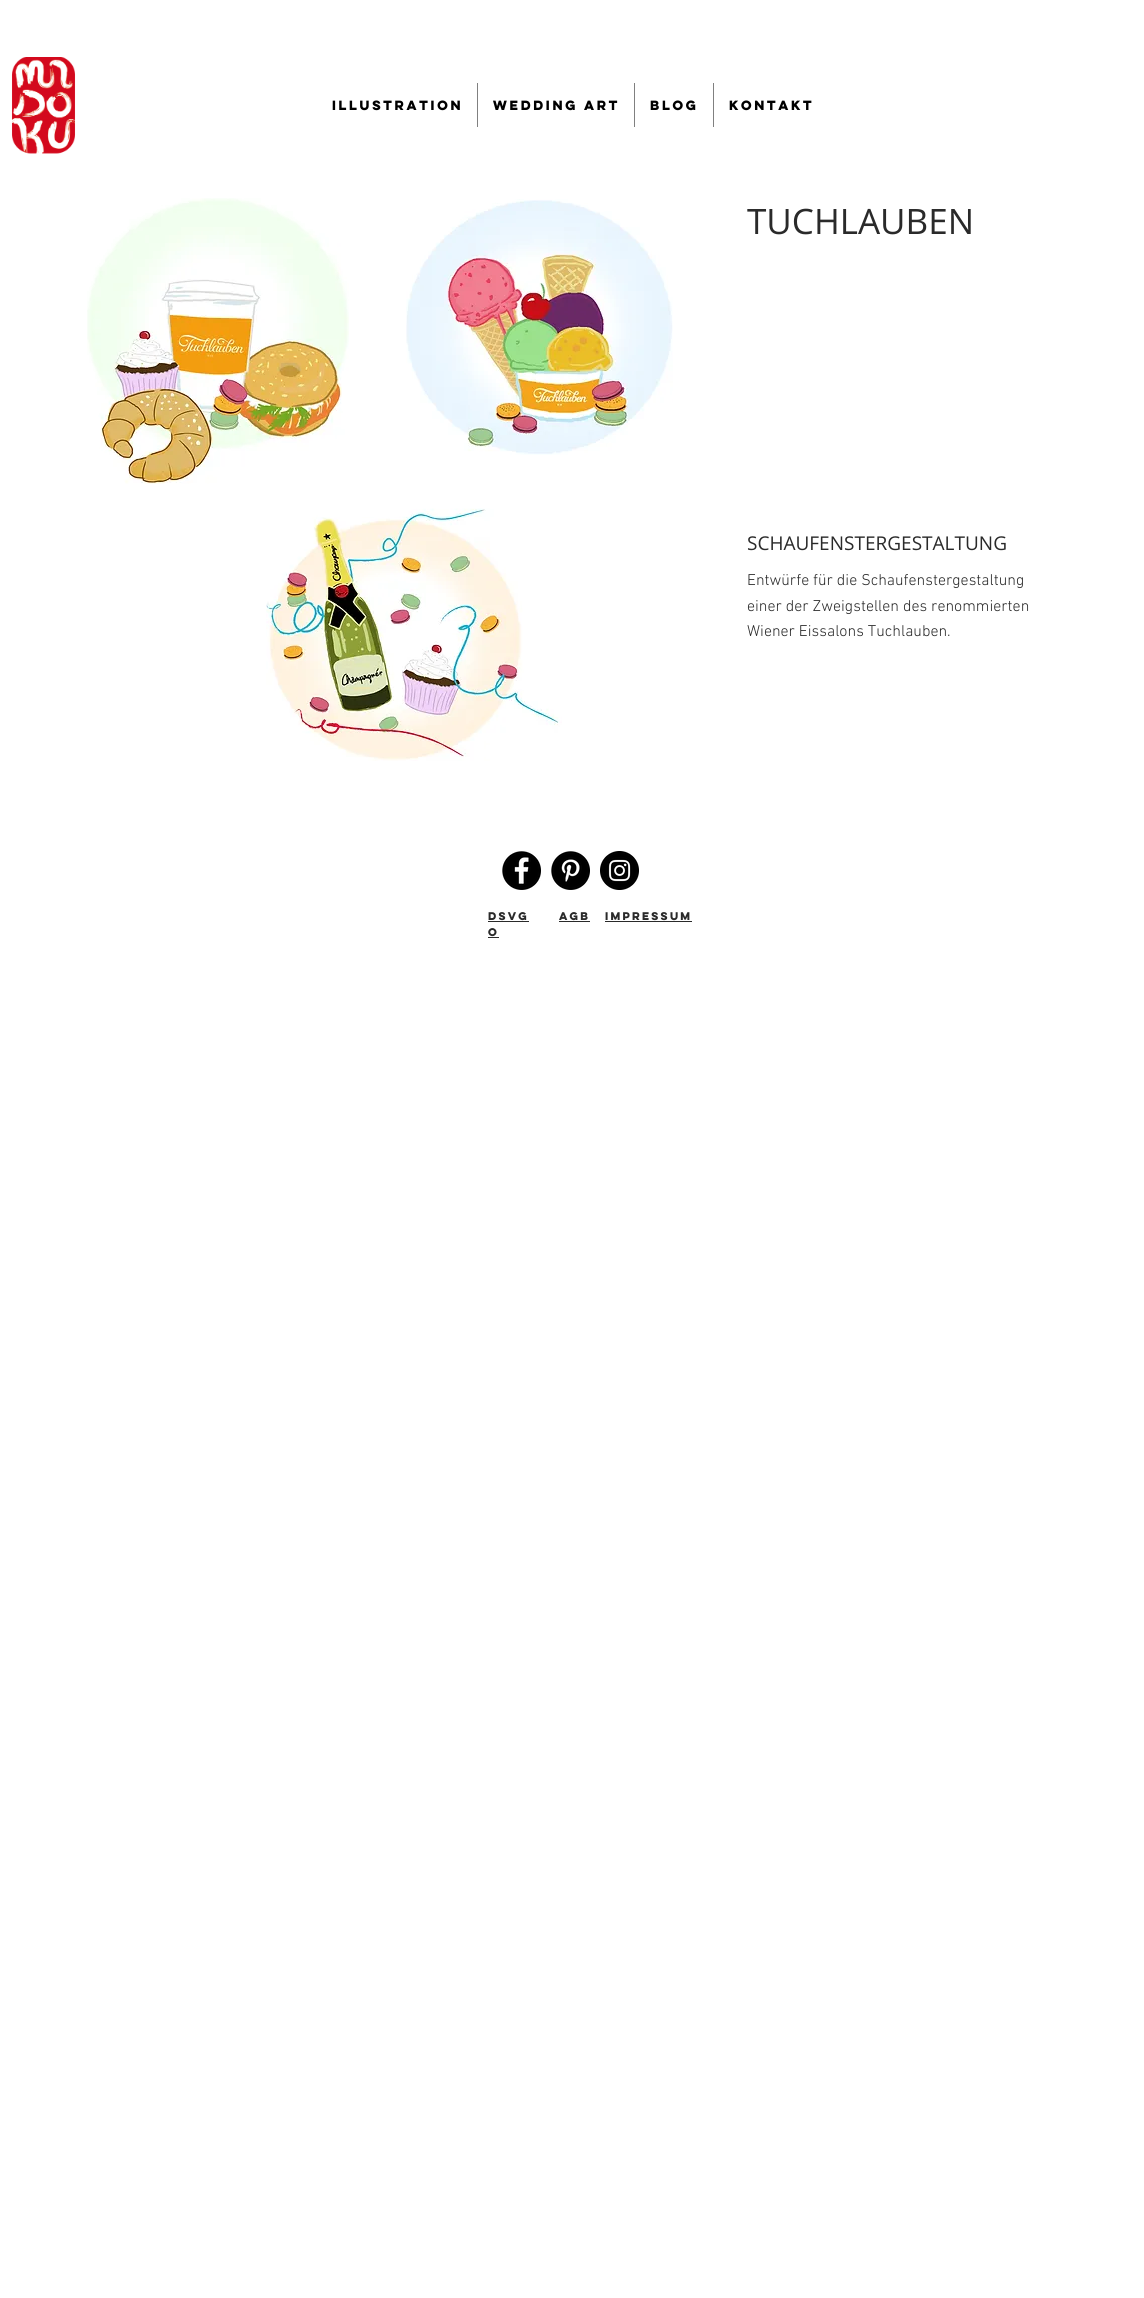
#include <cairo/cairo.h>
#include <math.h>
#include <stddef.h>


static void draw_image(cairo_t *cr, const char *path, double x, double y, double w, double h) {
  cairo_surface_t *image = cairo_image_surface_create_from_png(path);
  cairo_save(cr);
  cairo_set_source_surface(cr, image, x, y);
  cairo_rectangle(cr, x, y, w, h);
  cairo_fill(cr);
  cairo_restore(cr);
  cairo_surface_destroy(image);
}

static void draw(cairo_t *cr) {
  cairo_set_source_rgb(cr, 1, 1, 1);
  cairo_paint(cr);
  draw_image(cr, "images/1.png", 11, 57, 65, 97);
  cairo_set_source_rgb(cr, 128 / 255.0, 128 / 255.0, 128 / 255.0);
  cairo_rectangle(cr, 477, 83, 1, 44);
  cairo_fill(cr);
  cairo_rectangle(cr, 634, 83, 1, 44);
  cairo_fill(cr);
  cairo_rectangle(cr, 713, 83, 1, 44);
  cairo_fill(cr);
  draw_image(cr, "images/2.png", 87, 198, 262, 286);
  draw_image(cr, "images/3.png", 406, 199, 267, 256);
  draw_image(cr, "images/4.png", 266, 508, 296, 253);
  draw_image(cr, "images/5.png", 502, 851, 39, 39);
  draw_image(cr, "images/6.png", 551, 851, 39, 39);
  draw_image(cr, "images/7.png", 600, 851, 39, 39);
  cairo_set_source_rgb(cr, 42 / 255.0, 42 / 255.0, 42 / 255.0);
  cairo_rectangle(cr, 488, 921, 41, 1);
  cairo_fill(cr);
  cairo_rectangle(cr, 488, 937, 11, 1);
  cairo_fill(cr);
  cairo_rectangle(cr, 559, 921, 31, 1);
  cairo_fill(cr);
  cairo_rectangle(cr, 605, 921, 87, 1);
  cairo_fill(cr);
  cairo_select_font_face(cr, "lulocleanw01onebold", CAIRO_FONT_SLANT_NORMAL, CAIRO_FONT_WEIGHT_BOLD);
  cairo_set_font_size(cr, 12);
  cairo_set_source_rgb(cr, 0, 0, 0);
  cairo_move_to(cr, 332, 110);
  cairo_show_text(cr, "Illustration");
  cairo_move_to(cr, 493, 110);
  cairo_show_text(cr, "wedding art");
  cairo_move_to(cr, 650, 110);
  cairo_show_text(cr, "Blog");
  cairo_move_to(cr, 729, 110);
  cairo_show_text(cr, "Kontakt");
  cairo_select_font_face(cr, "Open Sans", CAIRO_FONT_SLANT_NORMAL, CAIRO_FONT_WEIGHT_NORMAL);
  cairo_set_font_size(cr, 35);
  cairo_set_source_rgb(cr, 42 / 255.0, 42 / 255.0, 42 / 255.0);
  cairo_move_to(cr, 747, 234);
  cairo_show_text(cr, "TUCHLAUBEN");
  cairo_set_font_size(cr, 19);
  cairo_move_to(cr, 747, 550);
  cairo_show_text(cr, "SCHAUFENSTERGESTALTUNG");
  cairo_select_font_face(cr, "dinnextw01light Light", CAIRO_FONT_SLANT_NORMAL, CAIRO_FONT_WEIGHT_NORMAL);
  cairo_set_font_size(cr, 16);
  cairo_move_to(cr, 747, 585);
  cairo_show_text(cr, "Entwürfe für die Schaufenstergestaltung");
  cairo_move_to(cr, 747, 611);
  cairo_show_text(cr, "einer der Zweigstellen des renommierten");
  cairo_move_to(cr, 747, 636);
  cairo_show_text(cr, "Wiener Eissalons Tuchlauben.");
  cairo_select_font_face(cr, "lulocleanw01onebold", CAIRO_FONT_SLANT_NORMAL, CAIRO_FONT_WEIGHT_BOLD);
  cairo_set_font_size(cr, 10);
  cairo_move_to(cr, 488, 920);
  cairo_show_text(cr, "DSVG");
  cairo_move_to(cr, 488, 936);
  cairo_show_text(cr, "O");
  cairo_move_to(cr, 559, 920);
  cairo_show_text(cr, "AGB");
  cairo_move_to(cr, 605, 920);
  cairo_show_text(cr, "Impressum");
}

int main(void) {
  cairo_surface_t *surface = cairo_image_surface_create(CAIRO_FORMAT_RGB24, 1144, 2298);
  cairo_t *cr = cairo_create(surface);
  cairo_font_options_t *options = cairo_font_options_create();
  cairo_font_options_set_hint_metrics(options, CAIRO_HINT_METRICS_OFF);
  cairo_font_options_set_hint_style(options, CAIRO_HINT_STYLE_NONE);
  cairo_set_font_options(cr, options);
  cairo_set_miter_limit(cr, 4);
  draw(cr);
  cairo_surface_write_to_png(surface, "out.png");
  cairo_font_options_destroy(options);
  cairo_destroy(cr);
  cairo_surface_destroy(surface);
  return 0;
}
